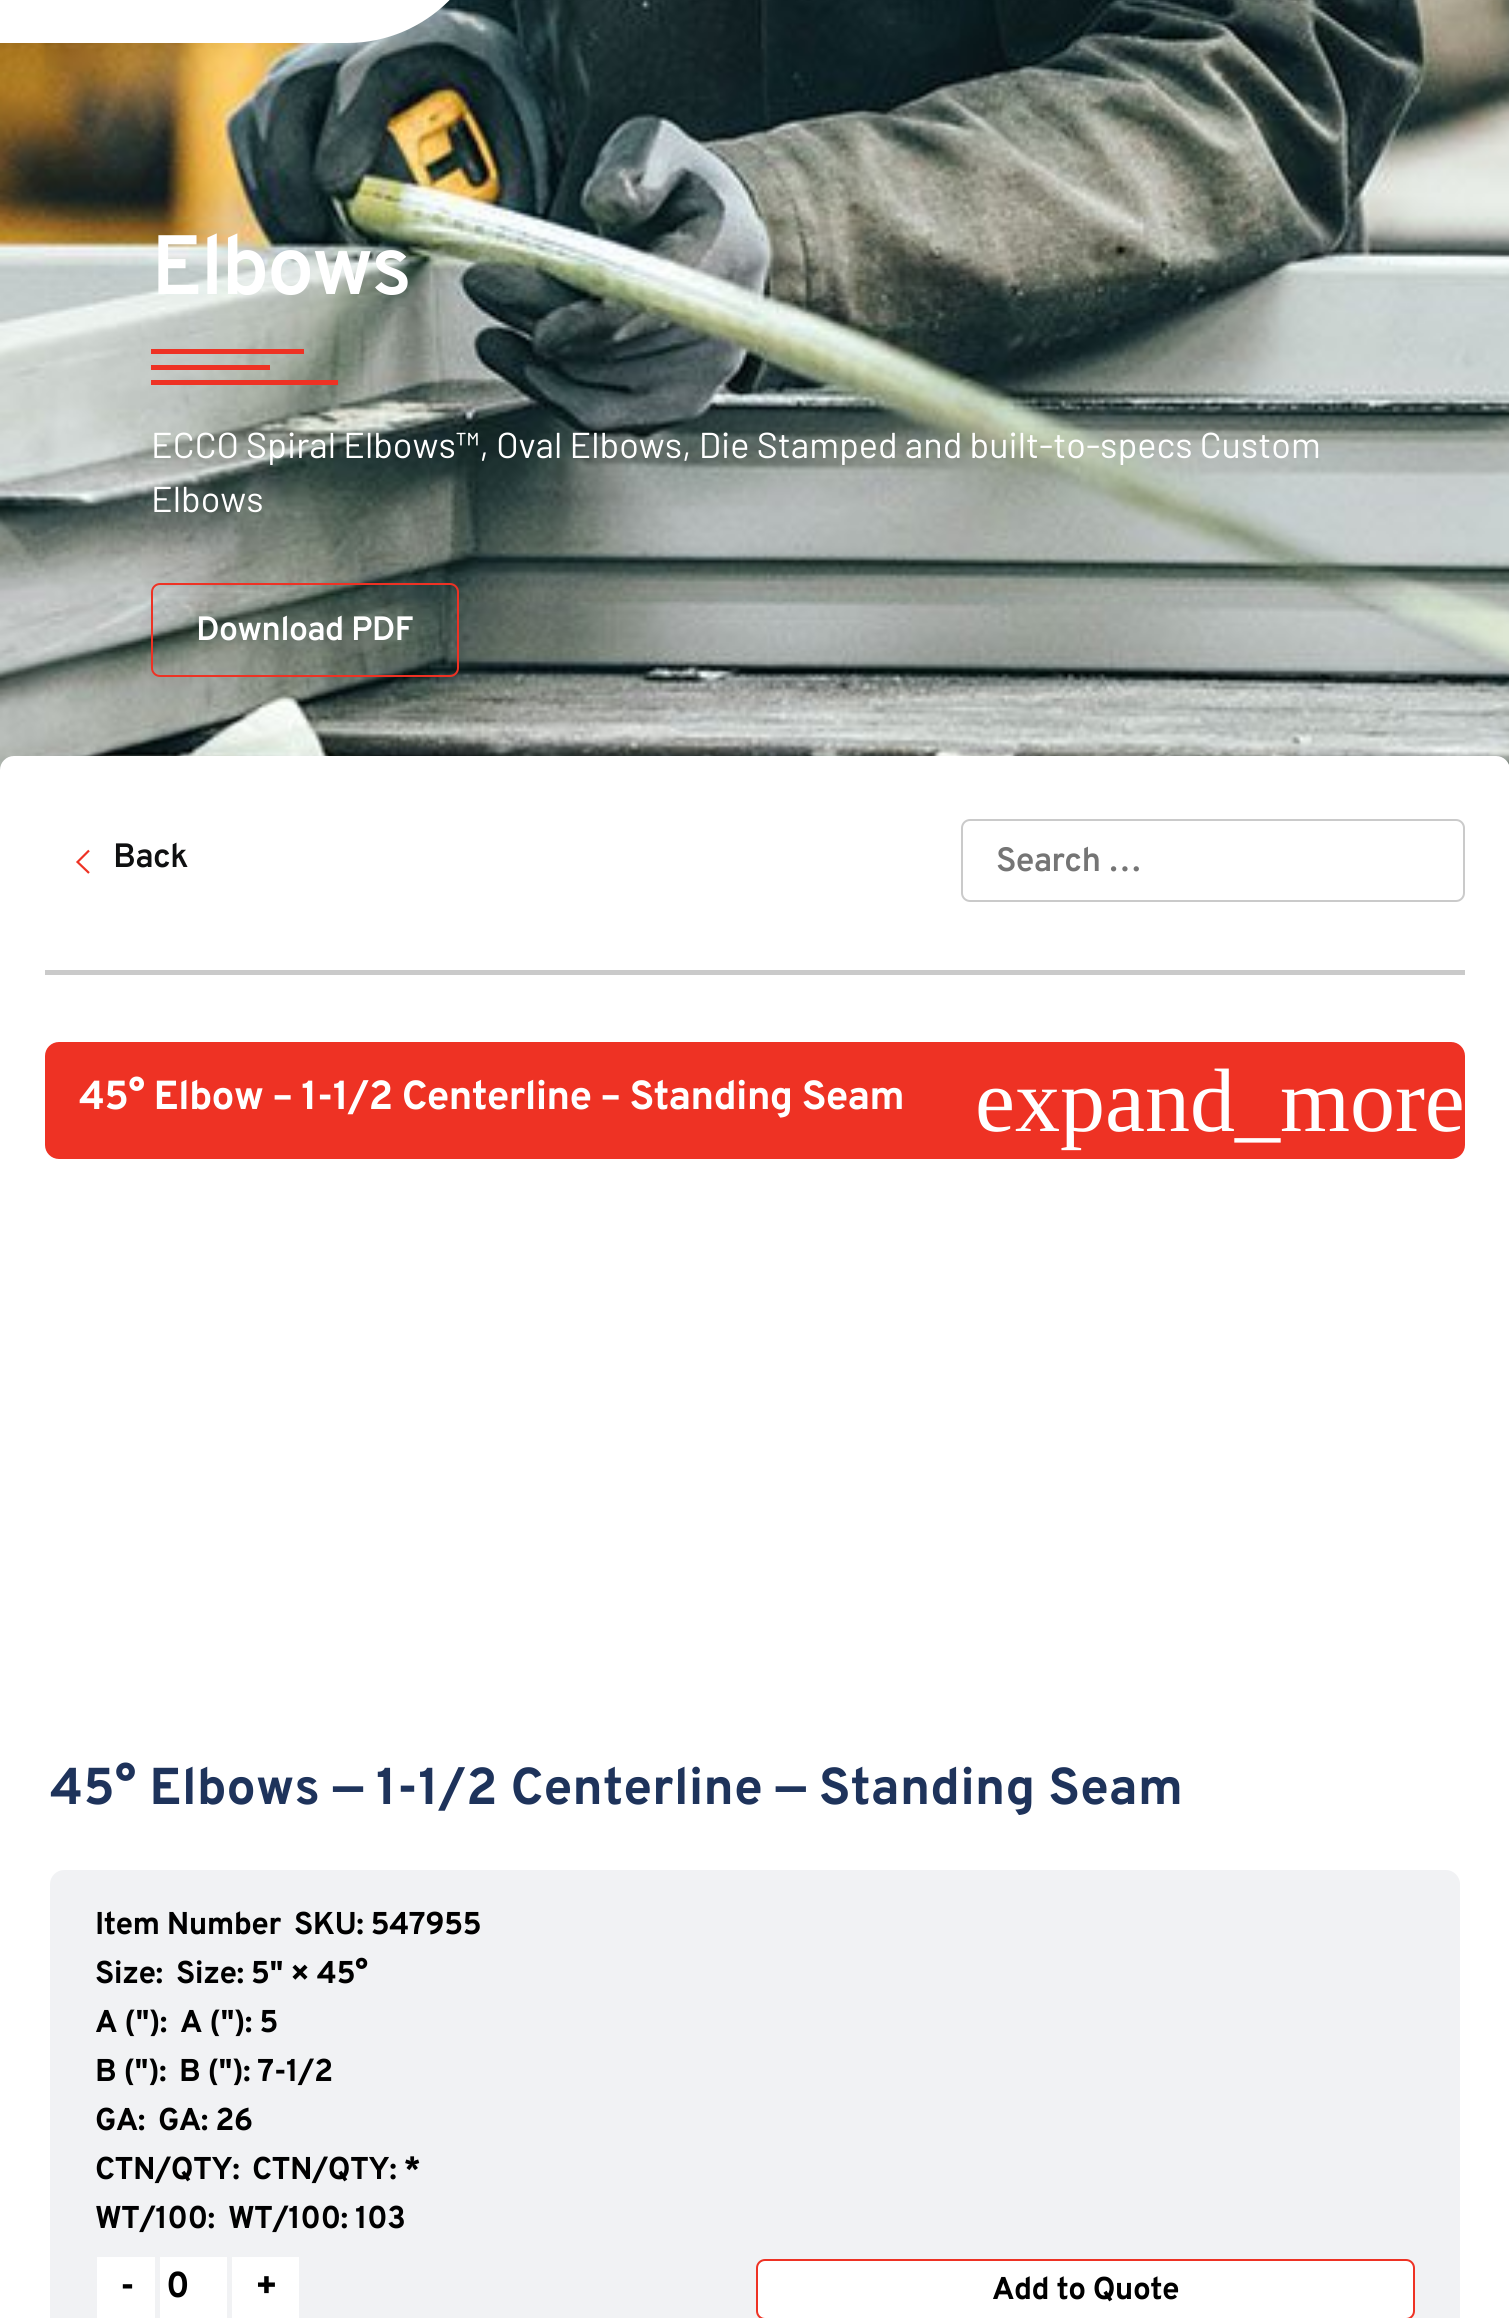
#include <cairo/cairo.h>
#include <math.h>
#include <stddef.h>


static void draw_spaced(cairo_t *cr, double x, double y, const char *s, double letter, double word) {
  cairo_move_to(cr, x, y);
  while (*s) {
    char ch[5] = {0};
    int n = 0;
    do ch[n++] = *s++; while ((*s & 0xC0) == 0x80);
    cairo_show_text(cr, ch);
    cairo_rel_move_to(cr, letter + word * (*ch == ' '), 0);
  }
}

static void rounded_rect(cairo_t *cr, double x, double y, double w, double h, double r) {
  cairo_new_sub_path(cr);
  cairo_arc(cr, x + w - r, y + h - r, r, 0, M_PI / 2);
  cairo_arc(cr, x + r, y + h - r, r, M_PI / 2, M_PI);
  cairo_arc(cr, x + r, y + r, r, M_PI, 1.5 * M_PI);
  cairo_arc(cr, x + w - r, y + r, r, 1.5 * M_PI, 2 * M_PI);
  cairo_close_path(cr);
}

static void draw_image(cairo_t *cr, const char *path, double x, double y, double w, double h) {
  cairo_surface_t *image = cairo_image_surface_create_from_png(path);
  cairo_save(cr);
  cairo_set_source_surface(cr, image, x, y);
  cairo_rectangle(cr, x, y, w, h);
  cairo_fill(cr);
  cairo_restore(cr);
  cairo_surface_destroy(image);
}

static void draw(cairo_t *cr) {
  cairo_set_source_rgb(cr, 1, 1, 1);
  cairo_paint(cr);
  draw_image(cr, "images/1.png", 0, 0, 1509, 770);
  cairo_set_source_rgb(cr, 1, 1, 1);
  cairo_new_path(cr);
  cairo_move_to(cr, 0, -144);
  cairo_line_to(cr, 347, -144);
  cairo_curve_to(cr, 426.5, -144, 491, -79.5, 491, 0);
  cairo_line_to(cr, 491, -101);
  cairo_curve_to(cr, 491, -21.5, 426.5, 43, 347, 43);
  cairo_line_to(cr, 0, 43);
  cairo_close_path(cr);
  cairo_fill(cr);
  cairo_set_source_rgb(cr, 238 / 255.0, 50 / 255.0, 36 / 255.0);
  cairo_rectangle(cr, 151, 349, 153, 5);
  cairo_fill(cr);
  cairo_rectangle(cr, 151, 365, 119, 5);
  cairo_fill(cr);
  cairo_rectangle(cr, 151, 380, 187, 5);
  cairo_fill(cr);
  rounded_rect(cr, 152, 584, 306, 92, 8);
  cairo_stroke(cr);
  cairo_set_source_rgb(cr, 1, 1, 1);
  rounded_rect(cr, 0, 756, 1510, 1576, 14);
  cairo_fill(cr);
  cairo_set_source_rgb(cr, 202 / 255.0, 202 / 255.0, 202 / 255.0);
  cairo_rectangle(cr, 45, 970, 1420, 5);
  cairo_fill(cr);
  cairo_new_path(cr);
  cairo_move_to(cr, 89, 873);
  cairo_line_to(cr, 77.5, 862);
  cairo_line_to(cr, 89, 850.5);
  cairo_set_source_rgb(cr, 238 / 255.0, 50 / 255.0, 36 / 255.0);
  cairo_set_line_width(cr, 2.2);
  cairo_stroke(cr);
  rounded_rect(cr, 962, 820, 502, 81, 8);
  cairo_set_source_rgb(cr, 202 / 255.0, 202 / 255.0, 202 / 255.0);
  cairo_set_line_width(cr, 2);
  cairo_stroke(cr);
  cairo_set_source_rgb(cr, 238 / 255.0, 50 / 255.0, 36 / 255.0);
  rounded_rect(cr, 45, 1042, 1420, 117, 14);
  cairo_fill(cr);
  cairo_set_source_rgb(cr, 241 / 255.0, 242 / 255.0, 244 / 255.0);
  cairo_new_path(cr);
  cairo_move_to(cr, 64, 1870);
  cairo_line_to(cr, 1446, 1870);
  cairo_curve_to(cr, 1453.5, 1870, 1460, 1876.5, 1460, 1884);
  cairo_line_to(cr, 1460, 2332);
  cairo_line_to(cr, 50, 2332);
  cairo_line_to(cr, 50, 1884);
  cairo_curve_to(cr, 50, 1876.5, 56.5, 1870, 64, 1870);
  cairo_close_path(cr);
  cairo_fill(cr);
  cairo_set_source_rgb(cr, 1, 1, 1);
  cairo_rectangle(cr, 97, 2257, 58, 61);
  cairo_fill(cr);
  cairo_rectangle(cr, 160, 2257, 67, 61);
  cairo_fill(cr);
  cairo_rectangle(cr, 232, 2257, 67, 61);
  cairo_fill(cr);
  rounded_rect(cr, 757, 2260, 657, 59, 8);
  cairo_fill_preserve(cr);
  cairo_set_source_rgb(cr, 238 / 255.0, 50 / 255.0, 36 / 255.0);
  cairo_stroke(cr);
  cairo_select_font_face(cr, "Overpass SemiBold", CAIRO_FONT_SLANT_NORMAL, CAIRO_FONT_WEIGHT_NORMAL);
  cairo_set_font_size(cr, 84);
  cairo_set_source_rgb(cr, 1, 1, 1);
  draw_spaced(cr, 151, 294, "Elbows", -2.5, 0);
  cairo_select_font_face(cr, "Barlow", CAIRO_FONT_SLANT_NORMAL, CAIRO_FONT_WEIGHT_NORMAL);
  cairo_set_font_size(cr, 36);
  cairo_move_to(cr, 151, 458);
  cairo_show_text(cr, "ECCO Spiral Elbows™, Oval Elbows, Die Stamped and built-to-specs Custom");
  cairo_move_to(cr, 151, 512);
  cairo_show_text(cr, "Elbows");
  cairo_select_font_face(cr, "Overpass SemiBold", CAIRO_FONT_SLANT_NORMAL, CAIRO_FONT_WEIGHT_NORMAL);
  cairo_set_font_size(cr, 33.75);
  draw_spaced(cr, 196, 640, "Download PDF", -0.75, 0);
  cairo_set_source_rgb(cr, 15 / 255.0, 16 / 255.0, 17 / 255.0);
  draw_spaced(cr, 113, 867, "Back", -0.75, 0);
  cairo_set_source_rgb(cr, 117 / 255.0, 117 / 255.0, 117 / 255.0);
  draw_spaced(cr, 996, 871, "Search …", -0.75, 0);
  cairo_select_font_face(cr, "Overpass", CAIRO_FONT_SLANT_NORMAL, CAIRO_FONT_WEIGHT_BOLD);
  cairo_set_font_size(cr, 40.5);
  cairo_set_source_rgb(cr, 1, 1, 1);
  draw_spaced(cr, 79, 1109, "45° Elbow – 1-1/2 Centerline – Standing Seam", -0.8, 0);
  cairo_select_font_face(cr, "Liberation Serif", CAIRO_FONT_SLANT_NORMAL, CAIRO_FONT_WEIGHT_NORMAL);
  cairo_set_font_size(cr, 90);
  cairo_move_to(cr, 975, 1131);
  cairo_show_text(cr, "expand_more");
  cairo_select_font_face(cr, "Overpass", CAIRO_FONT_SLANT_NORMAL, CAIRO_FONT_WEIGHT_BOLD);
  cairo_set_font_size(cr, 51.75);
  cairo_set_source_rgb(cr, 30 / 255.0, 51 / 255.0, 91 / 255.0);
  cairo_move_to(cr, 50, 1804);
  cairo_show_text(cr, "45° Elbows — 1-1/2 Centerline — Standing Seam");
  cairo_set_font_size(cr, 31.5);
  cairo_set_source_rgb(cr, 0, 0, 0);
  draw_spaced(cr, 95, 1934, "Item Number", -0.6, 0);
  draw_spaced(cr, 294, 1934, "SKU: 547955", -0.6, 0);
  draw_spaced(cr, 95, 1983, "Size:", -0.6, 0);
  draw_spaced(cr, 176, 1983, "Size: 5\" × 45°", -0.6, 0);
  draw_spaced(cr, 95, 2032, "A (\"):", -0.6, 0);
  draw_spaced(cr, 180, 2032, "A (\"): 5", -0.6, 0);
  draw_spaced(cr, 95, 2081, "B (\"):", -0.6, 0);
  draw_spaced(cr, 179, 2081, "B (\"): 7-1/2", -0.6, 0);
  draw_spaced(cr, 95, 2130, "GA:", -0.6, 0);
  draw_spaced(cr, 158, 2130, "GA: 26", -0.6, 0);
  draw_spaced(cr, 95, 2179, "CTN/QTY:", -0.6, 0);
  draw_spaced(cr, 252, 2179, "CTN/QTY: *", -0.6, 0);
  draw_spaced(cr, 95, 2228, "WT/100:", -0.6, 0);
  draw_spaced(cr, 228, 2228, "WT/100: 103", -0.6, 0);
  cairo_set_font_size(cr, 36);
  draw_spaced(cr, 120, 2297, "-", -1, 0);
  draw_spaced(cr, 166, 2297, "0", -1, 0);
  draw_spaced(cr, 255, 2297, "+", -1, 0);
  cairo_set_font_size(cr, 31.5);
  draw_spaced(cr, 992, 2299, "Add to Quote", -0.6, 0);
}

int main(void) {
  cairo_surface_t *surface = cairo_image_surface_create(CAIRO_FORMAT_RGB24, 1509, 2318);
  cairo_t *cr = cairo_create(surface);
  cairo_font_options_t *options = cairo_font_options_create();
  cairo_font_options_set_hint_metrics(options, CAIRO_HINT_METRICS_OFF);
  cairo_font_options_set_hint_style(options, CAIRO_HINT_STYLE_NONE);
  cairo_set_font_options(cr, options);
  cairo_set_miter_limit(cr, 4);
  draw(cr);
  cairo_surface_write_to_png(surface, "out.png");
  cairo_font_options_destroy(options);
  cairo_destroy(cr);
  cairo_surface_destroy(surface);
  return 0;
}
